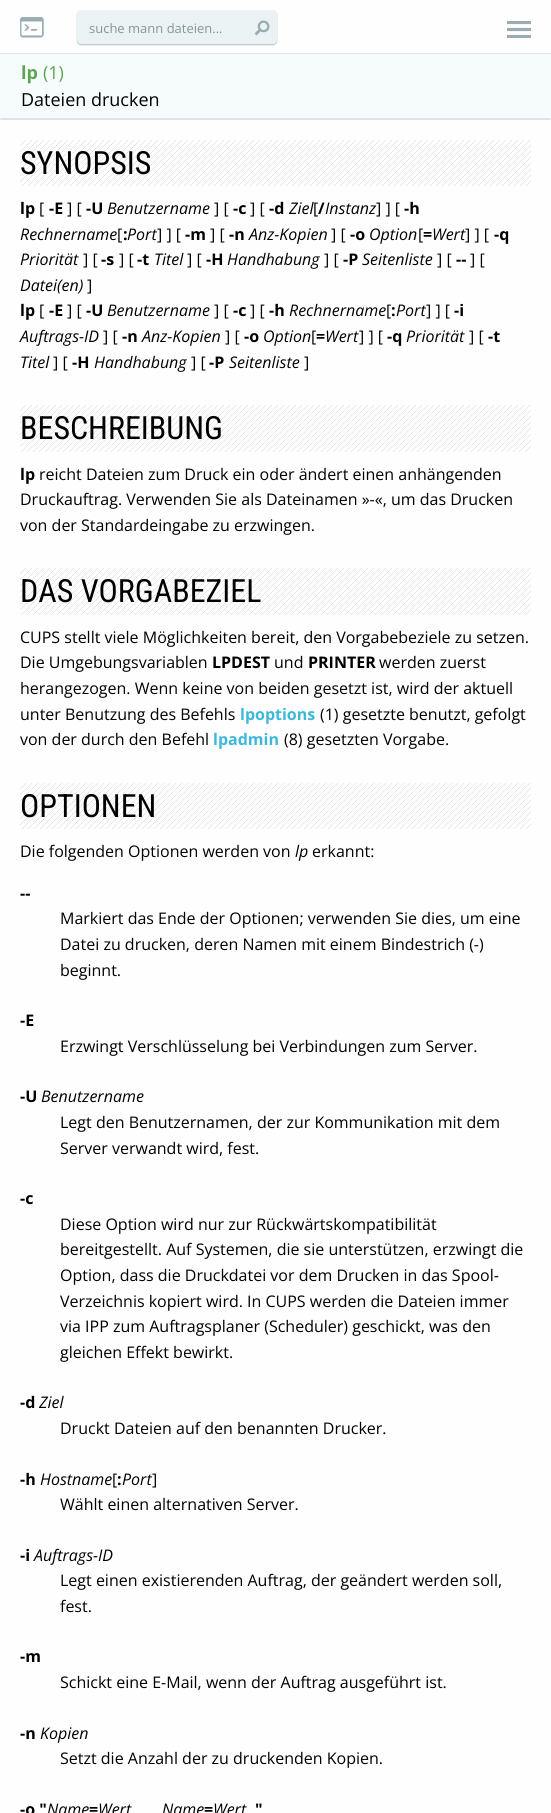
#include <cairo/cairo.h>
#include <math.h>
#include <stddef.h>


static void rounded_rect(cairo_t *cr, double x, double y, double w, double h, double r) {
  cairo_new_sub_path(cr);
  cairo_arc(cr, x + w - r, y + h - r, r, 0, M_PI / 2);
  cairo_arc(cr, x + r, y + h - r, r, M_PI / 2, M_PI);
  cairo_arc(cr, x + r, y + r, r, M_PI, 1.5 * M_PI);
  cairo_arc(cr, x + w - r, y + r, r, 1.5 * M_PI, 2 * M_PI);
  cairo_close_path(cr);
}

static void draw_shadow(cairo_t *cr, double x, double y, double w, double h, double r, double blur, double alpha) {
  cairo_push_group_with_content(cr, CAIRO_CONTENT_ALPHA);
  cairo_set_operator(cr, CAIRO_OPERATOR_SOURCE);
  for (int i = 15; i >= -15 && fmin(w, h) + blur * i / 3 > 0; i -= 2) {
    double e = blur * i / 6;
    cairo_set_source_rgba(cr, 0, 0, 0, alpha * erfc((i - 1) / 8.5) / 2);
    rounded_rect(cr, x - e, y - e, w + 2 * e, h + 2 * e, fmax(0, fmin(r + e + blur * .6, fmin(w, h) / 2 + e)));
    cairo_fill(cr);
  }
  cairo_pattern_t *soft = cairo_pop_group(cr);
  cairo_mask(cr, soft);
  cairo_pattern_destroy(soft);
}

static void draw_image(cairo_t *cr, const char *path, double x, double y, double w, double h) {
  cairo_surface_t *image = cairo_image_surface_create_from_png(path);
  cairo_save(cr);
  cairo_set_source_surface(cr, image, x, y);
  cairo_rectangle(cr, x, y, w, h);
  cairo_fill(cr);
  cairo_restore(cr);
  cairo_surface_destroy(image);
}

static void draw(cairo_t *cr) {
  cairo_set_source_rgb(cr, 254 / 255.0, 254 / 255.0, 254 / 255.0);
  cairo_paint(cr);
  cairo_set_source_rgb(cr, 220 / 255.0, 229 / 255.0, 231 / 255.0);
  cairo_rectangle(cr, 0, 53, 551, 1);
  cairo_fill(cr);
  draw_image(cr, "images/1.png", 20, 17, 24, 21);
  cairo_set_source_rgb(cr, 6 / 255.0, 47 / 255.0, 55 / 255.0);
  draw_shadow(cr, 77, 11, 200, 34, 4, 0.5, 0.3);
  cairo_set_source_rgb(cr, 234 / 255.0, 242 / 255.0, 244 / 255.0);
  rounded_rect(cr, 77, 10, 200, 34, 4);
  cairo_fill(cr);
  draw_image(cr, "images/2.png", 254, 20, 16, 16);
  draw_image(cr, "images/3.png", 507, 21, 24, 17);
  cairo_set_source_rgb(cr, 246 / 255.0, 251 / 255.0, 252 / 255.0);
  cairo_rectangle(cr, 0, 54, 551, 66);
  cairo_fill(cr);
  cairo_set_source_rgb(cr, 223 / 255.0, 227 / 255.0, 233 / 255.0);
  cairo_new_path(cr);
  cairo_move_to(cr, 551, 120);
  cairo_line_to(cr, 0, 120);
  cairo_line_to(cr, 1, 118);
  cairo_line_to(cr, 550, 118);
  cairo_close_path(cr);
  cairo_fill(cr);
  draw_image(cr, "images/4.png", 20, 140, 511, 46);
  draw_image(cr, "images/5.png", 20, 405, 511, 47);
  draw_image(cr, "images/5.png", 20, 568, 511, 47);
  draw_image(cr, "images/4.png", 20, 783, 511, 46);
  cairo_select_font_face(cr, "Open Sans", CAIRO_FONT_SLANT_NORMAL, CAIRO_FONT_WEIGHT_NORMAL);
  cairo_set_font_size(cr, 13);
  cairo_set_source_rgb(cr, 134 / 255.0, 150 / 255.0, 157 / 255.0);
  cairo_move_to(cr, 89, 33);
  cairo_show_text(cr, "suche mann dateien...");
  cairo_select_font_face(cr, "Open Sans", CAIRO_FONT_SLANT_NORMAL, CAIRO_FONT_WEIGHT_BOLD);
  cairo_set_font_size(cr, 18);
  cairo_set_source_rgb(cr, 89 / 255.0, 165 / 255.0, 82 / 255.0);
  cairo_move_to(cr, 21, 79);
  cairo_show_text(cr, "lp");
  cairo_select_font_face(cr, "Open Sans", CAIRO_FONT_SLANT_NORMAL, CAIRO_FONT_WEIGHT_NORMAL);
  cairo_move_to(cr, 43, 79);
  cairo_show_text(cr, "(1)");
  cairo_set_source_rgb(cr, 0, 0, 0);
  cairo_move_to(cr, 21, 106);
  cairo_show_text(cr, "Dateien drucken");
  cairo_select_font_face(cr, "Roboto Condensed", CAIRO_FONT_SLANT_NORMAL, CAIRO_FONT_WEIGHT_NORMAL);
  cairo_set_font_size(cr, 32);
  cairo_move_to(cr, 20, 174);
  cairo_show_text(cr, "SYNOPSIS");
  cairo_select_font_face(cr, "Open Sans", CAIRO_FONT_SLANT_NORMAL, CAIRO_FONT_WEIGHT_BOLD);
  cairo_set_font_size(cr, 16);
  cairo_move_to(cr, 20, 214);
  cairo_show_text(cr, "lp");
  cairo_select_font_face(cr, "Open Sans", CAIRO_FONT_SLANT_NORMAL, CAIRO_FONT_WEIGHT_NORMAL);
  cairo_move_to(cr, 39, 214);
  cairo_show_text(cr, "[");
  cairo_select_font_face(cr, "Open Sans", CAIRO_FONT_SLANT_NORMAL, CAIRO_FONT_WEIGHT_BOLD);
  cairo_move_to(cr, 49, 214);
  cairo_show_text(cr, "-E");
  cairo_select_font_face(cr, "Open Sans", CAIRO_FONT_SLANT_NORMAL, CAIRO_FONT_WEIGHT_NORMAL);
  cairo_move_to(cr, 67, 214);
  cairo_show_text(cr, "] [");
  cairo_select_font_face(cr, "Open Sans", CAIRO_FONT_SLANT_NORMAL, CAIRO_FONT_WEIGHT_BOLD);
  cairo_move_to(cr, 86, 214);
  cairo_show_text(cr, "-U");
  cairo_select_font_face(cr, "Open Sans", CAIRO_FONT_SLANT_ITALIC, CAIRO_FONT_WEIGHT_NORMAL);
  cairo_move_to(cr, 107, 214);
  cairo_show_text(cr, "Benutzername");
  cairo_select_font_face(cr, "Open Sans", CAIRO_FONT_SLANT_NORMAL, CAIRO_FONT_WEIGHT_NORMAL);
  cairo_move_to(cr, 214, 214);
  cairo_show_text(cr, "] [");
  cairo_select_font_face(cr, "Open Sans", CAIRO_FONT_SLANT_NORMAL, CAIRO_FONT_WEIGHT_BOLD);
  cairo_move_to(cr, 233, 214);
  cairo_show_text(cr, "-c");
  cairo_select_font_face(cr, "Open Sans", CAIRO_FONT_SLANT_NORMAL, CAIRO_FONT_WEIGHT_NORMAL);
  cairo_move_to(cr, 250, 214);
  cairo_show_text(cr, "] [");
  cairo_select_font_face(cr, "Open Sans", CAIRO_FONT_SLANT_NORMAL, CAIRO_FONT_WEIGHT_BOLD);
  cairo_move_to(cr, 269, 214);
  cairo_show_text(cr, "-d");
  cairo_select_font_face(cr, "Open Sans", CAIRO_FONT_SLANT_ITALIC, CAIRO_FONT_WEIGHT_NORMAL);
  cairo_move_to(cr, 289, 214);
  cairo_show_text(cr, "Ziel");
  cairo_select_font_face(cr, "Open Sans", CAIRO_FONT_SLANT_NORMAL, CAIRO_FONT_WEIGHT_NORMAL);
  cairo_move_to(cr, 313, 214);
  cairo_show_text(cr, "[");
  cairo_select_font_face(cr, "Open Sans", CAIRO_FONT_SLANT_NORMAL, CAIRO_FONT_WEIGHT_BOLD);
  cairo_move_to(cr, 318, 214);
  cairo_show_text(cr, "/");
  cairo_select_font_face(cr, "Open Sans", CAIRO_FONT_SLANT_ITALIC, CAIRO_FONT_WEIGHT_NORMAL);
  cairo_move_to(cr, 325, 214);
  cairo_show_text(cr, "Instanz");
  cairo_select_font_face(cr, "Open Sans", CAIRO_FONT_SLANT_NORMAL, CAIRO_FONT_WEIGHT_NORMAL);
  cairo_move_to(cr, 376, 214);
  cairo_show_text(cr, "] ] [");
  cairo_select_font_face(cr, "Open Sans", CAIRO_FONT_SLANT_NORMAL, CAIRO_FONT_WEIGHT_BOLD);
  cairo_move_to(cr, 404, 214);
  cairo_show_text(cr, "-h");
  cairo_select_font_face(cr, "Open Sans", CAIRO_FONT_SLANT_ITALIC, CAIRO_FONT_WEIGHT_NORMAL);
  cairo_move_to(cr, 20, 240);
  cairo_show_text(cr, "Rechnername");
  cairo_select_font_face(cr, "Open Sans", CAIRO_FONT_SLANT_NORMAL, CAIRO_FONT_WEIGHT_NORMAL);
  cairo_move_to(cr, 117, 240);
  cairo_show_text(cr, "[");
  cairo_select_font_face(cr, "Open Sans", CAIRO_FONT_SLANT_NORMAL, CAIRO_FONT_WEIGHT_BOLD);
  cairo_move_to(cr, 123, 240);
  cairo_show_text(cr, ":");
  cairo_select_font_face(cr, "Open Sans", CAIRO_FONT_SLANT_ITALIC, CAIRO_FONT_WEIGHT_NORMAL);
  cairo_move_to(cr, 127, 240);
  cairo_show_text(cr, "Port");
  cairo_select_font_face(cr, "Open Sans", CAIRO_FONT_SLANT_NORMAL, CAIRO_FONT_WEIGHT_NORMAL);
  cairo_move_to(cr, 157, 240);
  cairo_show_text(cr, "] ] [");
  cairo_select_font_face(cr, "Open Sans", CAIRO_FONT_SLANT_NORMAL, CAIRO_FONT_WEIGHT_BOLD);
  cairo_move_to(cr, 185, 240);
  cairo_show_text(cr, "-m");
  cairo_select_font_face(cr, "Open Sans", CAIRO_FONT_SLANT_NORMAL, CAIRO_FONT_WEIGHT_NORMAL);
  cairo_move_to(cr, 210, 240);
  cairo_show_text(cr, "] [");
  cairo_select_font_face(cr, "Open Sans", CAIRO_FONT_SLANT_NORMAL, CAIRO_FONT_WEIGHT_BOLD);
  cairo_move_to(cr, 229, 240);
  cairo_show_text(cr, "-n");
  cairo_select_font_face(cr, "Open Sans", CAIRO_FONT_SLANT_ITALIC, CAIRO_FONT_WEIGHT_NORMAL);
  cairo_move_to(cr, 249, 240);
  cairo_show_text(cr, "Anz-Kopien");
  cairo_select_font_face(cr, "Open Sans", CAIRO_FONT_SLANT_NORMAL, CAIRO_FONT_WEIGHT_NORMAL);
  cairo_move_to(cr, 331, 240);
  cairo_show_text(cr, "] [");
  cairo_select_font_face(cr, "Open Sans", CAIRO_FONT_SLANT_NORMAL, CAIRO_FONT_WEIGHT_BOLD);
  cairo_move_to(cr, 350, 240);
  cairo_show_text(cr, "-o");
  cairo_select_font_face(cr, "Open Sans", CAIRO_FONT_SLANT_ITALIC, CAIRO_FONT_WEIGHT_NORMAL);
  cairo_move_to(cr, 369, 240);
  cairo_show_text(cr, "Option");
  cairo_select_font_face(cr, "Open Sans", CAIRO_FONT_SLANT_NORMAL, CAIRO_FONT_WEIGHT_NORMAL);
  cairo_move_to(cr, 418, 240);
  cairo_show_text(cr, "[");
  cairo_select_font_face(cr, "Open Sans", CAIRO_FONT_SLANT_NORMAL, CAIRO_FONT_WEIGHT_BOLD);
  cairo_move_to(cr, 423, 240);
  cairo_show_text(cr, "=");
  cairo_select_font_face(cr, "Open Sans", CAIRO_FONT_SLANT_ITALIC, CAIRO_FONT_WEIGHT_NORMAL);
  cairo_move_to(cr, 432, 240);
  cairo_show_text(cr, "Wert");
  cairo_select_font_face(cr, "Open Sans", CAIRO_FONT_SLANT_NORMAL, CAIRO_FONT_WEIGHT_NORMAL);
  cairo_move_to(cr, 465, 240);
  cairo_show_text(cr, "] ] [");
  cairo_select_font_face(cr, "Open Sans", CAIRO_FONT_SLANT_NORMAL, CAIRO_FONT_WEIGHT_BOLD);
  cairo_move_to(cr, 494, 240);
  cairo_show_text(cr, "-q");
  cairo_select_font_face(cr, "Open Sans", CAIRO_FONT_SLANT_ITALIC, CAIRO_FONT_WEIGHT_NORMAL);
  cairo_move_to(cr, 20, 265);
  cairo_show_text(cr, "Priorität");
  cairo_select_font_face(cr, "Open Sans", CAIRO_FONT_SLANT_NORMAL, CAIRO_FONT_WEIGHT_NORMAL);
  cairo_move_to(cr, 83, 265);
  cairo_show_text(cr, "] [");
  cairo_select_font_face(cr, "Open Sans", CAIRO_FONT_SLANT_NORMAL, CAIRO_FONT_WEIGHT_BOLD);
  cairo_move_to(cr, 101, 265);
  cairo_show_text(cr, "-s");
  cairo_select_font_face(cr, "Open Sans", CAIRO_FONT_SLANT_NORMAL, CAIRO_FONT_WEIGHT_NORMAL);
  cairo_move_to(cr, 119, 265);
  cairo_show_text(cr, "] [");
  cairo_select_font_face(cr, "Open Sans", CAIRO_FONT_SLANT_NORMAL, CAIRO_FONT_WEIGHT_BOLD);
  cairo_move_to(cr, 137, 265);
  cairo_show_text(cr, "-t");
  cairo_select_font_face(cr, "Open Sans", CAIRO_FONT_SLANT_ITALIC, CAIRO_FONT_WEIGHT_NORMAL);
  cairo_move_to(cr, 154, 265);
  cairo_show_text(cr, "Titel");
  cairo_select_font_face(cr, "Open Sans", CAIRO_FONT_SLANT_NORMAL, CAIRO_FONT_WEIGHT_NORMAL);
  cairo_move_to(cr, 187, 265);
  cairo_show_text(cr, "] [");
  cairo_select_font_face(cr, "Open Sans", CAIRO_FONT_SLANT_NORMAL, CAIRO_FONT_WEIGHT_BOLD);
  cairo_move_to(cr, 206, 265);
  cairo_show_text(cr, "-H");
  cairo_select_font_face(cr, "Open Sans", CAIRO_FONT_SLANT_ITALIC, CAIRO_FONT_WEIGHT_NORMAL);
  cairo_move_to(cr, 227, 265);
  cairo_show_text(cr, "Handhabung");
  cairo_select_font_face(cr, "Open Sans", CAIRO_FONT_SLANT_NORMAL, CAIRO_FONT_WEIGHT_NORMAL);
  cairo_move_to(cr, 324, 265);
  cairo_show_text(cr, "] [");
  cairo_select_font_face(cr, "Open Sans", CAIRO_FONT_SLANT_NORMAL, CAIRO_FONT_WEIGHT_BOLD);
  cairo_move_to(cr, 343, 265);
  cairo_show_text(cr, "-P");
  cairo_select_font_face(cr, "Open Sans", CAIRO_FONT_SLANT_ITALIC, CAIRO_FONT_WEIGHT_NORMAL);
  cairo_move_to(cr, 362, 265);
  cairo_show_text(cr, "Seitenliste");
  cairo_select_font_face(cr, "Open Sans", CAIRO_FONT_SLANT_NORMAL, CAIRO_FONT_WEIGHT_NORMAL);
  cairo_move_to(cr, 437, 265);
  cairo_show_text(cr, "] [");
  cairo_select_font_face(cr, "Open Sans", CAIRO_FONT_SLANT_NORMAL, CAIRO_FONT_WEIGHT_BOLD);
  cairo_move_to(cr, 456, 265);
  cairo_show_text(cr, "--");
  cairo_select_font_face(cr, "Open Sans", CAIRO_FONT_SLANT_NORMAL, CAIRO_FONT_WEIGHT_NORMAL);
  cairo_move_to(cr, 470, 265);
  cairo_show_text(cr, "] [");
  cairo_select_font_face(cr, "Open Sans", CAIRO_FONT_SLANT_ITALIC, CAIRO_FONT_WEIGHT_NORMAL);
  cairo_move_to(cr, 20, 291);
  cairo_show_text(cr, "Datei(en)");
  cairo_select_font_face(cr, "Open Sans", CAIRO_FONT_SLANT_NORMAL, CAIRO_FONT_WEIGHT_NORMAL);
  cairo_move_to(cr, 87, 291);
  cairo_show_text(cr, "]");
  cairo_select_font_face(cr, "Open Sans", CAIRO_FONT_SLANT_NORMAL, CAIRO_FONT_WEIGHT_BOLD);
  cairo_move_to(cr, 20, 316);
  cairo_show_text(cr, "lp");
  cairo_select_font_face(cr, "Open Sans", CAIRO_FONT_SLANT_NORMAL, CAIRO_FONT_WEIGHT_NORMAL);
  cairo_move_to(cr, 39, 316);
  cairo_show_text(cr, "[");
  cairo_select_font_face(cr, "Open Sans", CAIRO_FONT_SLANT_NORMAL, CAIRO_FONT_WEIGHT_BOLD);
  cairo_move_to(cr, 49, 316);
  cairo_show_text(cr, "-E");
  cairo_select_font_face(cr, "Open Sans", CAIRO_FONT_SLANT_NORMAL, CAIRO_FONT_WEIGHT_NORMAL);
  cairo_move_to(cr, 67, 316);
  cairo_show_text(cr, "] [");
  cairo_select_font_face(cr, "Open Sans", CAIRO_FONT_SLANT_NORMAL, CAIRO_FONT_WEIGHT_BOLD);
  cairo_move_to(cr, 86, 316);
  cairo_show_text(cr, "-U");
  cairo_select_font_face(cr, "Open Sans", CAIRO_FONT_SLANT_ITALIC, CAIRO_FONT_WEIGHT_NORMAL);
  cairo_move_to(cr, 107, 316);
  cairo_show_text(cr, "Benutzername");
  cairo_select_font_face(cr, "Open Sans", CAIRO_FONT_SLANT_NORMAL, CAIRO_FONT_WEIGHT_NORMAL);
  cairo_move_to(cr, 214, 316);
  cairo_show_text(cr, "] [");
  cairo_select_font_face(cr, "Open Sans", CAIRO_FONT_SLANT_NORMAL, CAIRO_FONT_WEIGHT_BOLD);
  cairo_move_to(cr, 233, 316);
  cairo_show_text(cr, "-c");
  cairo_select_font_face(cr, "Open Sans", CAIRO_FONT_SLANT_NORMAL, CAIRO_FONT_WEIGHT_NORMAL);
  cairo_move_to(cr, 250, 316);
  cairo_show_text(cr, "] [");
  cairo_select_font_face(cr, "Open Sans", CAIRO_FONT_SLANT_NORMAL, CAIRO_FONT_WEIGHT_BOLD);
  cairo_move_to(cr, 269, 316);
  cairo_show_text(cr, "-h");
  cairo_select_font_face(cr, "Open Sans", CAIRO_FONT_SLANT_ITALIC, CAIRO_FONT_WEIGHT_NORMAL);
  cairo_move_to(cr, 289, 316);
  cairo_show_text(cr, "Rechnername");
  cairo_select_font_face(cr, "Open Sans", CAIRO_FONT_SLANT_NORMAL, CAIRO_FONT_WEIGHT_NORMAL);
  cairo_move_to(cr, 386, 316);
  cairo_show_text(cr, "[");
  cairo_select_font_face(cr, "Open Sans", CAIRO_FONT_SLANT_NORMAL, CAIRO_FONT_WEIGHT_BOLD);
  cairo_move_to(cr, 391, 316);
  cairo_show_text(cr, ":");
  cairo_select_font_face(cr, "Open Sans", CAIRO_FONT_SLANT_ITALIC, CAIRO_FONT_WEIGHT_NORMAL);
  cairo_move_to(cr, 396, 316);
  cairo_show_text(cr, "Port");
  cairo_select_font_face(cr, "Open Sans", CAIRO_FONT_SLANT_NORMAL, CAIRO_FONT_WEIGHT_NORMAL);
  cairo_move_to(cr, 426, 316);
  cairo_show_text(cr, "] ] [");
  cairo_select_font_face(cr, "Open Sans", CAIRO_FONT_SLANT_NORMAL, CAIRO_FONT_WEIGHT_BOLD);
  cairo_move_to(cr, 454, 316);
  cairo_show_text(cr, "-i");
  cairo_select_font_face(cr, "Open Sans", CAIRO_FONT_SLANT_ITALIC, CAIRO_FONT_WEIGHT_NORMAL);
  cairo_move_to(cr, 20, 342);
  cairo_show_text(cr, "Auftrags-ID");
  cairo_select_font_face(cr, "Open Sans", CAIRO_FONT_SLANT_NORMAL, CAIRO_FONT_WEIGHT_NORMAL);
  cairo_move_to(cr, 103, 342);
  cairo_show_text(cr, "] [");
  cairo_select_font_face(cr, "Open Sans", CAIRO_FONT_SLANT_NORMAL, CAIRO_FONT_WEIGHT_BOLD);
  cairo_move_to(cr, 122, 342);
  cairo_show_text(cr, "-n");
  cairo_select_font_face(cr, "Open Sans", CAIRO_FONT_SLANT_ITALIC, CAIRO_FONT_WEIGHT_NORMAL);
  cairo_move_to(cr, 142, 342);
  cairo_show_text(cr, "Anz-Kopien");
  cairo_select_font_face(cr, "Open Sans", CAIRO_FONT_SLANT_NORMAL, CAIRO_FONT_WEIGHT_NORMAL);
  cairo_move_to(cr, 225, 342);
  cairo_show_text(cr, "] [");
  cairo_select_font_face(cr, "Open Sans", CAIRO_FONT_SLANT_NORMAL, CAIRO_FONT_WEIGHT_BOLD);
  cairo_move_to(cr, 244, 342);
  cairo_show_text(cr, "-o");
  cairo_select_font_face(cr, "Open Sans", CAIRO_FONT_SLANT_ITALIC, CAIRO_FONT_WEIGHT_NORMAL);
  cairo_move_to(cr, 263, 342);
  cairo_show_text(cr, "Option");
  cairo_select_font_face(cr, "Open Sans", CAIRO_FONT_SLANT_NORMAL, CAIRO_FONT_WEIGHT_NORMAL);
  cairo_move_to(cr, 311, 342);
  cairo_show_text(cr, "[");
  cairo_select_font_face(cr, "Open Sans", CAIRO_FONT_SLANT_NORMAL, CAIRO_FONT_WEIGHT_BOLD);
  cairo_move_to(cr, 316, 342);
  cairo_show_text(cr, "=");
  cairo_select_font_face(cr, "Open Sans", CAIRO_FONT_SLANT_ITALIC, CAIRO_FONT_WEIGHT_NORMAL);
  cairo_move_to(cr, 325, 342);
  cairo_show_text(cr, "Wert");
  cairo_select_font_face(cr, "Open Sans", CAIRO_FONT_SLANT_NORMAL, CAIRO_FONT_WEIGHT_NORMAL);
  cairo_move_to(cr, 359, 342);
  cairo_show_text(cr, "] ] [");
  cairo_select_font_face(cr, "Open Sans", CAIRO_FONT_SLANT_NORMAL, CAIRO_FONT_WEIGHT_BOLD);
  cairo_move_to(cr, 387, 342);
  cairo_show_text(cr, "-q");
  cairo_select_font_face(cr, "Open Sans", CAIRO_FONT_SLANT_ITALIC, CAIRO_FONT_WEIGHT_NORMAL);
  cairo_move_to(cr, 406, 342);
  cairo_show_text(cr, "Priorität");
  cairo_select_font_face(cr, "Open Sans", CAIRO_FONT_SLANT_NORMAL, CAIRO_FONT_WEIGHT_NORMAL);
  cairo_move_to(cr, 469, 342);
  cairo_show_text(cr, "] [");
  cairo_select_font_face(cr, "Open Sans", CAIRO_FONT_SLANT_NORMAL, CAIRO_FONT_WEIGHT_BOLD);
  cairo_move_to(cr, 488, 342);
  cairo_show_text(cr, "-t");
  cairo_select_font_face(cr, "Open Sans", CAIRO_FONT_SLANT_ITALIC, CAIRO_FONT_WEIGHT_NORMAL);
  cairo_move_to(cr, 20, 368);
  cairo_show_text(cr, "Titel");
  cairo_select_font_face(cr, "Open Sans", CAIRO_FONT_SLANT_NORMAL, CAIRO_FONT_WEIGHT_NORMAL);
  cairo_move_to(cr, 53, 368);
  cairo_show_text(cr, "] [");
  cairo_select_font_face(cr, "Open Sans", CAIRO_FONT_SLANT_NORMAL, CAIRO_FONT_WEIGHT_BOLD);
  cairo_move_to(cr, 72, 368);
  cairo_show_text(cr, "-H");
  cairo_select_font_face(cr, "Open Sans", CAIRO_FONT_SLANT_ITALIC, CAIRO_FONT_WEIGHT_NORMAL);
  cairo_move_to(cr, 94, 368);
  cairo_show_text(cr, "Handhabung");
  cairo_select_font_face(cr, "Open Sans", CAIRO_FONT_SLANT_NORMAL, CAIRO_FONT_WEIGHT_NORMAL);
  cairo_move_to(cr, 191, 368);
  cairo_show_text(cr, "] [");
  cairo_select_font_face(cr, "Open Sans", CAIRO_FONT_SLANT_NORMAL, CAIRO_FONT_WEIGHT_BOLD);
  cairo_move_to(cr, 209, 368);
  cairo_show_text(cr, "-P");
  cairo_select_font_face(cr, "Open Sans", CAIRO_FONT_SLANT_ITALIC, CAIRO_FONT_WEIGHT_NORMAL);
  cairo_move_to(cr, 229, 368);
  cairo_show_text(cr, "Seitenliste");
  cairo_select_font_face(cr, "Open Sans", CAIRO_FONT_SLANT_NORMAL, CAIRO_FONT_WEIGHT_NORMAL);
  cairo_move_to(cr, 304, 368);
  cairo_show_text(cr, "]");
  cairo_select_font_face(cr, "Roboto Condensed", CAIRO_FONT_SLANT_NORMAL, CAIRO_FONT_WEIGHT_NORMAL);
  cairo_set_font_size(cr, 32);
  cairo_move_to(cr, 20, 439);
  cairo_show_text(cr, "BESCHREIBUNG");
  cairo_select_font_face(cr, "Open Sans", CAIRO_FONT_SLANT_NORMAL, CAIRO_FONT_WEIGHT_BOLD);
  cairo_set_font_size(cr, 16);
  cairo_move_to(cr, 20, 480);
  cairo_show_text(cr, "lp");
  cairo_select_font_face(cr, "Open Sans", CAIRO_FONT_SLANT_NORMAL, CAIRO_FONT_WEIGHT_NORMAL);
  cairo_move_to(cr, 39, 480);
  cairo_show_text(cr, "reicht Dateien zum Druck ein oder ändert einen anhängenden");
  cairo_move_to(cr, 20, 505);
  cairo_show_text(cr, "Druckauftrag. Verwenden Sie als Dateinamen »-«, um das Drucken");
  cairo_move_to(cr, 20, 531);
  cairo_show_text(cr, "von der Standardeingabe zu erzwingen.");
  cairo_select_font_face(cr, "Roboto Condensed", CAIRO_FONT_SLANT_NORMAL, CAIRO_FONT_WEIGHT_NORMAL);
  cairo_set_font_size(cr, 32);
  cairo_move_to(cr, 20, 602);
  cairo_show_text(cr, "DAS VORGABEZIEL");
  cairo_select_font_face(cr, "Open Sans", CAIRO_FONT_SLANT_NORMAL, CAIRO_FONT_WEIGHT_NORMAL);
  cairo_set_font_size(cr, 16);
  cairo_move_to(cr, 20, 643);
  cairo_show_text(cr, "CUPS stellt viele Möglichkeiten bereit, den Vorgabebeziele zu setzen.");
  cairo_move_to(cr, 20, 668);
  cairo_show_text(cr, "Die Umgebungsvariablen");
  cairo_select_font_face(cr, "Open Sans", CAIRO_FONT_SLANT_NORMAL, CAIRO_FONT_WEIGHT_BOLD);
  cairo_move_to(cr, 212, 668);
  cairo_show_text(cr, "LPDEST");
  cairo_select_font_face(cr, "Open Sans", CAIRO_FONT_SLANT_NORMAL, CAIRO_FONT_WEIGHT_NORMAL);
  cairo_move_to(cr, 274, 668);
  cairo_show_text(cr, "und");
  cairo_select_font_face(cr, "Open Sans", CAIRO_FONT_SLANT_NORMAL, CAIRO_FONT_WEIGHT_BOLD);
  cairo_move_to(cr, 308, 668);
  cairo_show_text(cr, "PRINTER");
  cairo_select_font_face(cr, "Open Sans", CAIRO_FONT_SLANT_NORMAL, CAIRO_FONT_WEIGHT_NORMAL);
  cairo_move_to(cr, 379, 668);
  cairo_show_text(cr, "werden zuerst");
  cairo_move_to(cr, 20, 694);
  cairo_show_text(cr, "herangezogen. Wenn keine von beiden gesetzt ist, wird der aktuell");
  cairo_move_to(cr, 20, 720);
  cairo_show_text(cr, "unter Benutzung des Befehls");
  cairo_select_font_face(cr, "Open Sans", CAIRO_FONT_SLANT_NORMAL, CAIRO_FONT_WEIGHT_BOLD);
  cairo_set_source_rgb(cr, 61 / 255.0, 184 / 255.0, 219 / 255.0);
  cairo_move_to(cr, 240, 720);
  cairo_show_text(cr, "lpoptions");
  cairo_select_font_face(cr, "Open Sans", CAIRO_FONT_SLANT_NORMAL, CAIRO_FONT_WEIGHT_NORMAL);
  cairo_set_source_rgb(cr, 0, 0, 0);
  cairo_move_to(cr, 320, 720);
  cairo_show_text(cr, "(1) gesetzte benutzt, gefolgt");
  cairo_move_to(cr, 20, 745);
  cairo_show_text(cr, "von der durch den Befehl");
  cairo_select_font_face(cr, "Open Sans", CAIRO_FONT_SLANT_NORMAL, CAIRO_FONT_WEIGHT_BOLD);
  cairo_set_source_rgb(cr, 61 / 255.0, 184 / 255.0, 219 / 255.0);
  cairo_move_to(cr, 213, 745);
  cairo_show_text(cr, "lpadmin");
  cairo_select_font_face(cr, "Open Sans", CAIRO_FONT_SLANT_NORMAL, CAIRO_FONT_WEIGHT_NORMAL);
  cairo_set_source_rgb(cr, 0, 0, 0);
  cairo_move_to(cr, 284, 745);
  cairo_show_text(cr, "(8) gesetzten Vorgabe.");
  cairo_select_font_face(cr, "Roboto Condensed", CAIRO_FONT_SLANT_NORMAL, CAIRO_FONT_WEIGHT_NORMAL);
  cairo_set_font_size(cr, 32);
  cairo_move_to(cr, 20, 817);
  cairo_show_text(cr, "OPTIONEN");
  cairo_select_font_face(cr, "Open Sans", CAIRO_FONT_SLANT_NORMAL, CAIRO_FONT_WEIGHT_NORMAL);
  cairo_set_font_size(cr, 16);
  cairo_move_to(cr, 20, 857);
  cairo_show_text(cr, "Die folgenden Optionen werden von");
  cairo_select_font_face(cr, "Open Sans", CAIRO_FONT_SLANT_ITALIC, CAIRO_FONT_WEIGHT_NORMAL);
  cairo_move_to(cr, 295, 857);
  cairo_show_text(cr, "lp");
  cairo_select_font_face(cr, "Open Sans", CAIRO_FONT_SLANT_NORMAL, CAIRO_FONT_WEIGHT_NORMAL);
  cairo_move_to(cr, 312, 857);
  cairo_show_text(cr, "erkannt:");
  cairo_select_font_face(cr, "Open Sans", CAIRO_FONT_SLANT_NORMAL, CAIRO_FONT_WEIGHT_BOLD);
  cairo_move_to(cr, 20, 899);
  cairo_show_text(cr, "--");
  cairo_select_font_face(cr, "Open Sans", CAIRO_FONT_SLANT_NORMAL, CAIRO_FONT_WEIGHT_NORMAL);
  cairo_move_to(cr, 60, 924);
  cairo_show_text(cr, "Markiert das Ende der Optionen; verwenden Sie dies, um eine");
  cairo_move_to(cr, 60, 950);
  cairo_show_text(cr, "Datei zu drucken, deren Namen mit einem Bindestrich (-)");
  cairo_move_to(cr, 60, 976);
  cairo_show_text(cr, "beginnt.");
  cairo_select_font_face(cr, "Open Sans", CAIRO_FONT_SLANT_NORMAL, CAIRO_FONT_WEIGHT_BOLD);
  cairo_move_to(cr, 20, 1026);
  cairo_show_text(cr, "-E");
  cairo_select_font_face(cr, "Open Sans", CAIRO_FONT_SLANT_NORMAL, CAIRO_FONT_WEIGHT_NORMAL);
  cairo_move_to(cr, 60, 1052);
  cairo_show_text(cr, "Erzwingt Verschlüsselung bei Verbindungen zum Server.");
  cairo_select_font_face(cr, "Open Sans", CAIRO_FONT_SLANT_NORMAL, CAIRO_FONT_WEIGHT_BOLD);
  cairo_move_to(cr, 20, 1102);
  cairo_show_text(cr, "-U");
  cairo_select_font_face(cr, "Open Sans", CAIRO_FONT_SLANT_ITALIC, CAIRO_FONT_WEIGHT_NORMAL);
  cairo_move_to(cr, 41, 1102);
  cairo_show_text(cr, "Benutzername");
  cairo_select_font_face(cr, "Open Sans", CAIRO_FONT_SLANT_NORMAL, CAIRO_FONT_WEIGHT_NORMAL);
  cairo_move_to(cr, 60, 1128);
  cairo_show_text(cr, "Legt den Benutzernamen, der zur Kommunikation mit dem");
  cairo_move_to(cr, 60, 1154);
  cairo_show_text(cr, "Server verwandt wird, fest.");
  cairo_select_font_face(cr, "Open Sans", CAIRO_FONT_SLANT_NORMAL, CAIRO_FONT_WEIGHT_BOLD);
  cairo_move_to(cr, 20, 1204);
  cairo_show_text(cr, "-c");
  cairo_select_font_face(cr, "Open Sans", CAIRO_FONT_SLANT_NORMAL, CAIRO_FONT_WEIGHT_NORMAL);
  cairo_move_to(cr, 60, 1230);
  cairo_show_text(cr, "Diese Option wird nur zur Rückwärtskompatibilität");
  cairo_move_to(cr, 60, 1255);
  cairo_show_text(cr, "bereitgestellt. Auf Systemen, die sie unterstützen, erzwingt die");
  cairo_move_to(cr, 60, 1281);
  cairo_show_text(cr, "Option, dass die Druckdatei vor dem Drucken in das Spool-");
  cairo_move_to(cr, 60, 1307);
  cairo_show_text(cr, "Verzeichnis kopiert wird. In CUPS werden die Dateien immer");
  cairo_move_to(cr, 60, 1332);
  cairo_show_text(cr, "via IPP zum Auftragsplaner (Scheduler) geschickt, was den");
  cairo_move_to(cr, 60, 1358);
  cairo_show_text(cr, "gleichen Effekt bewirkt.");
  cairo_select_font_face(cr, "Open Sans", CAIRO_FONT_SLANT_NORMAL, CAIRO_FONT_WEIGHT_BOLD);
  cairo_move_to(cr, 20, 1408);
  cairo_show_text(cr, "-d");
  cairo_select_font_face(cr, "Open Sans", CAIRO_FONT_SLANT_ITALIC, CAIRO_FONT_WEIGHT_NORMAL);
  cairo_move_to(cr, 39, 1408);
  cairo_show_text(cr, "Ziel");
  cairo_select_font_face(cr, "Open Sans", CAIRO_FONT_SLANT_NORMAL, CAIRO_FONT_WEIGHT_NORMAL);
  cairo_move_to(cr, 60, 1434);
  cairo_show_text(cr, "Druckt Dateien auf den benannten Drucker.");
  cairo_select_font_face(cr, "Open Sans", CAIRO_FONT_SLANT_NORMAL, CAIRO_FONT_WEIGHT_BOLD);
  cairo_move_to(cr, 20, 1485);
  cairo_show_text(cr, "-h");
  cairo_select_font_face(cr, "Open Sans", CAIRO_FONT_SLANT_ITALIC, CAIRO_FONT_WEIGHT_NORMAL);
  cairo_move_to(cr, 40, 1485);
  cairo_show_text(cr, "Hostname");
  cairo_select_font_face(cr, "Open Sans", CAIRO_FONT_SLANT_NORMAL, CAIRO_FONT_WEIGHT_NORMAL);
  cairo_move_to(cr, 112, 1485);
  cairo_show_text(cr, "[");
  cairo_select_font_face(cr, "Open Sans", CAIRO_FONT_SLANT_NORMAL, CAIRO_FONT_WEIGHT_BOLD);
  cairo_move_to(cr, 117, 1485);
  cairo_show_text(cr, ":");
  cairo_select_font_face(cr, "Open Sans", CAIRO_FONT_SLANT_ITALIC, CAIRO_FONT_WEIGHT_NORMAL);
  cairo_move_to(cr, 122, 1485);
  cairo_show_text(cr, "Port");
  cairo_select_font_face(cr, "Open Sans", CAIRO_FONT_SLANT_NORMAL, CAIRO_FONT_WEIGHT_NORMAL);
  cairo_move_to(cr, 152, 1485);
  cairo_show_text(cr, "]");
  cairo_move_to(cr, 60, 1510);
  cairo_show_text(cr, "Wählt einen alternativen Server.");
  cairo_select_font_face(cr, "Open Sans", CAIRO_FONT_SLANT_NORMAL, CAIRO_FONT_WEIGHT_BOLD);
  cairo_move_to(cr, 20, 1561);
  cairo_show_text(cr, "-i");
  cairo_select_font_face(cr, "Open Sans", CAIRO_FONT_SLANT_ITALIC, CAIRO_FONT_WEIGHT_NORMAL);
  cairo_move_to(cr, 34, 1561);
  cairo_show_text(cr, "Auftrags-ID");
  cairo_select_font_face(cr, "Open Sans", CAIRO_FONT_SLANT_NORMAL, CAIRO_FONT_WEIGHT_NORMAL);
  cairo_move_to(cr, 60, 1586);
  cairo_show_text(cr, "Legt einen existierenden Auftrag, der geändert werden soll,");
  cairo_move_to(cr, 60, 1612);
  cairo_show_text(cr, "fest.");
  cairo_select_font_face(cr, "Open Sans", CAIRO_FONT_SLANT_NORMAL, CAIRO_FONT_WEIGHT_BOLD);
  cairo_move_to(cr, 20, 1662);
  cairo_show_text(cr, "-m");
  cairo_select_font_face(cr, "Open Sans", CAIRO_FONT_SLANT_NORMAL, CAIRO_FONT_WEIGHT_NORMAL);
  cairo_move_to(cr, 60, 1688);
  cairo_show_text(cr, "Schickt eine E-Mail, wenn der Auftrag ausgeführt ist.");
  cairo_select_font_face(cr, "Open Sans", CAIRO_FONT_SLANT_NORMAL, CAIRO_FONT_WEIGHT_BOLD);
  cairo_move_to(cr, 20, 1739);
  cairo_show_text(cr, "-n");
  cairo_select_font_face(cr, "Open Sans", CAIRO_FONT_SLANT_ITALIC, CAIRO_FONT_WEIGHT_NORMAL);
  cairo_move_to(cr, 40, 1739);
  cairo_show_text(cr, "Kopien");
  cairo_select_font_face(cr, "Open Sans", CAIRO_FONT_SLANT_NORMAL, CAIRO_FONT_WEIGHT_NORMAL);
  cairo_move_to(cr, 60, 1764);
  cairo_show_text(cr, "Setzt die Anzahl der zu druckenden Kopien.");
  cairo_select_font_face(cr, "Open Sans", CAIRO_FONT_SLANT_NORMAL, CAIRO_FONT_WEIGHT_BOLD);
  cairo_move_to(cr, 20, 1815);
  cairo_show_text(cr, "-o \"");
  cairo_select_font_face(cr, "Open Sans", CAIRO_FONT_SLANT_ITALIC, CAIRO_FONT_WEIGHT_NORMAL);
  cairo_move_to(cr, 47, 1815);
  cairo_show_text(cr, "Name");
  cairo_move_to(cr, 98, 1815);
  cairo_show_text(cr, "Wert");
  cairo_move_to(cr, 162, 1815);
  cairo_show_text(cr, "Name");
  cairo_move_to(cr, 213, 1815);
  cairo_show_text(cr, "Wert");
  cairo_select_font_face(cr, "Open Sans", CAIRO_FONT_SLANT_NORMAL, CAIRO_FONT_WEIGHT_BOLD);
  cairo_move_to(cr, 255, 1815);
  cairo_show_text(cr, "\"");
  cairo_move_to(cr, 89, 1815);
  cairo_show_text(cr, "=");
  cairo_move_to(cr, 204, 1815);
  cairo_show_text(cr, "=");
}

int main(void) {
  cairo_surface_t *surface = cairo_image_surface_create(CAIRO_FORMAT_RGB24, 551, 1813);
  cairo_t *cr = cairo_create(surface);
  cairo_font_options_t *options = cairo_font_options_create();
  cairo_font_options_set_hint_metrics(options, CAIRO_HINT_METRICS_OFF);
  cairo_font_options_set_hint_style(options, CAIRO_HINT_STYLE_NONE);
  cairo_set_font_options(cr, options);
  cairo_set_miter_limit(cr, 4);
  draw(cr);
  cairo_surface_write_to_png(surface, "out.png");
  cairo_font_options_destroy(options);
  cairo_destroy(cr);
  cairo_surface_destroy(surface);
  return 0;
}
